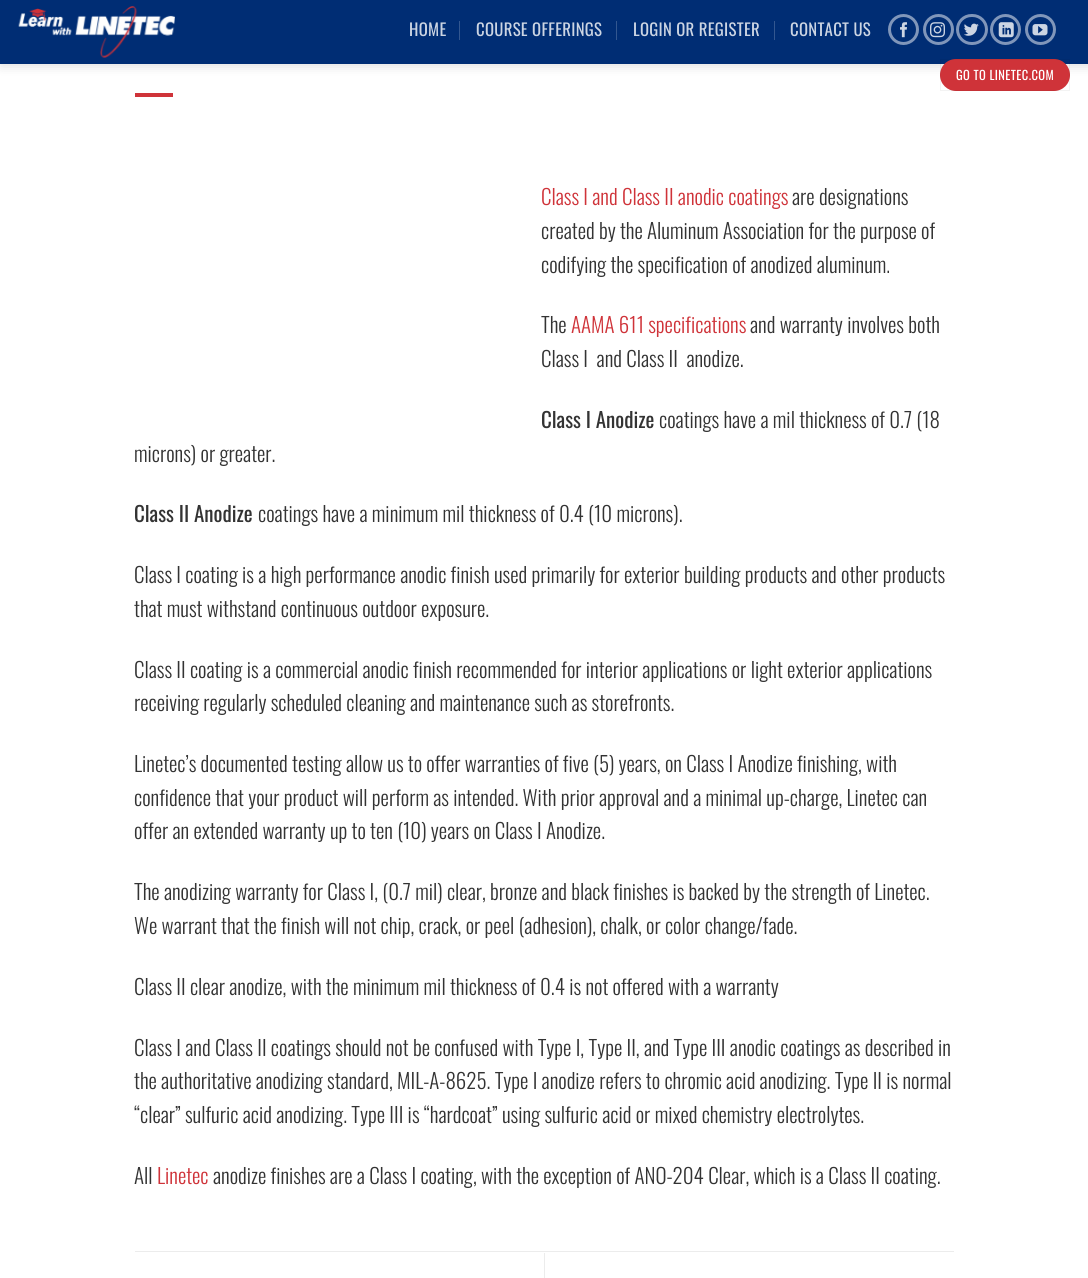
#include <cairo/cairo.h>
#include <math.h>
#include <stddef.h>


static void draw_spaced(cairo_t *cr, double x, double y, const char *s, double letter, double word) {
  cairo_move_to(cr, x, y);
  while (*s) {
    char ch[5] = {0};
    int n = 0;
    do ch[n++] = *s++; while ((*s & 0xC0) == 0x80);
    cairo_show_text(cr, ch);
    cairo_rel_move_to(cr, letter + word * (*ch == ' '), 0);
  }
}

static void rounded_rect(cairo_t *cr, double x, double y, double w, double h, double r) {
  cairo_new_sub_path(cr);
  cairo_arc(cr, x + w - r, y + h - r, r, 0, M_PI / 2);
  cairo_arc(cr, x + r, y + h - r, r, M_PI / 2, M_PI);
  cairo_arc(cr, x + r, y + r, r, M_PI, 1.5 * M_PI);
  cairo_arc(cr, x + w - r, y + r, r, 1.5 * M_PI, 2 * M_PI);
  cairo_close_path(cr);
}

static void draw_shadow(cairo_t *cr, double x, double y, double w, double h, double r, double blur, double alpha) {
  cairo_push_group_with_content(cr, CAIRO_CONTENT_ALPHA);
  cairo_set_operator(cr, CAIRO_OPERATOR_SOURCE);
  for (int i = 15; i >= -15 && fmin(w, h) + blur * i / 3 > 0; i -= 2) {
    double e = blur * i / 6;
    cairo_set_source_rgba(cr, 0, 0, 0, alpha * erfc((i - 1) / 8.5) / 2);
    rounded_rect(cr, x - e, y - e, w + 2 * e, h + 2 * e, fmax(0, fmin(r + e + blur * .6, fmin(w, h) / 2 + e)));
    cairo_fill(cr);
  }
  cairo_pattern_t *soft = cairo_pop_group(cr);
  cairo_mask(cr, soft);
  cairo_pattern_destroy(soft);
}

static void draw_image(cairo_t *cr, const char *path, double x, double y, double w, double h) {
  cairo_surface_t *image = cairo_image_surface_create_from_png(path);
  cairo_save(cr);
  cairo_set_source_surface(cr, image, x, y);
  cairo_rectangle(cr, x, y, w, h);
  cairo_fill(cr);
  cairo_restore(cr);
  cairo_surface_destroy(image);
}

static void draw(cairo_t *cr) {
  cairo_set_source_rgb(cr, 1, 1, 1);
  cairo_paint(cr);
  cairo_set_source_rgb(cr, 0, 0, 0);
  draw_shadow(cr, 1, 1, 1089, 64, 0, 6, 0.15);
  cairo_set_source_rgb(cr, 0, 45 / 255.0, 116 / 255.0);
  cairo_rectangle(cr, 0, 0, 1088, 64);
  cairo_fill(cr);
  draw_image(cr, "images/1.png", 18, 6, 157, 52);
  cairo_set_source_rgb(cr, 51 / 255.0, 87 / 255.0, 144 / 255.0);
  cairo_rectangle(cr, 459, 21, 1, 19);
  cairo_fill(cr);
  cairo_rectangle(cr, 616, 21, 1, 19);
  cairo_fill(cr);
  cairo_rectangle(cr, 774, 21, 1, 19);
  cairo_fill(cr);
  cairo_arc(cr, 903.5, 29.5, 14, 0, 2 * M_PI);
  cairo_set_source_rgb(cr, 128 / 255.0, 150 / 255.0, 186 / 255.0);
  cairo_set_line_width(cr, 3);
  cairo_stroke(cr);
  draw_image(cr, "images/2.png", 900, 22, 7, 16);
  cairo_arc(cr, 938.5, 29.5, 14, 0, 2 * M_PI);
  cairo_stroke(cr);
  draw_image(cr, "images/3.png", 930, 22, 15, 16);
  rounded_rect(cr, 957.5, 15.5, 29, 28, 14);
  cairo_stroke(cr);
  draw_image(cr, "images/4.png", 964, 23, 15, 13);
  cairo_arc(cr, 1005.5, 29.5, 14, 0, 2 * M_PI);
  cairo_stroke(cr);
  draw_image(cr, "images/5.png", 998, 22, 16, 16);
  cairo_arc(cr, 1040.5, 29.5, 14, 0, 2 * M_PI);
  cairo_stroke(cr);
  draw_image(cr, "images/6.png", 1032, 24, 16, 12);
  cairo_set_source_rgb(cr, 207 / 255.0, 51 / 255.0, 57 / 255.0);
  rounded_rect(cr, 940, 59, 130, 32, 16);
  cairo_fill(cr);
  cairo_rectangle(cr, 940.5, 59.5, 129, 31);
  cairo_set_source_rgba(cr, 0, 0, 0, 0.05);
  cairo_set_line_width(cr, 1);
  cairo_stroke(cr);
  cairo_set_source_rgb(cr, 207 / 255.0, 51 / 255.0, 57 / 255.0);
  cairo_rectangle(cr, 135, 93, 38, 4);
  cairo_fill(cr);
  cairo_set_source_rgb(cr, 236 / 255.0, 236 / 255.0, 236 / 255.0);
  cairo_rectangle(cr, 135, 1251, 819, 1);
  cairo_fill(cr);
  cairo_rectangle(cr, 544, 1253, 1, 25);
  cairo_fill(cr);
  cairo_select_font_face(cr, "Oswald", CAIRO_FONT_SLANT_NORMAL, CAIRO_FONT_WEIGHT_NORMAL);
  cairo_set_font_size(cr, 16.75);
  cairo_set_source_rgb(cr, 204 / 255.0, 213 / 255.0, 227 / 255.0);
  draw_spaced(cr, 409, 36, "HOME", 0.3, 0);
  draw_spaced(cr, 476, 36, "COURSE OFFERINGS", 0.3, 0);
  draw_spaced(cr, 633, 36, "LOGIN OR REGISTER", 0.3, 0);
  draw_spaced(cr, 790, 36, "CONTACT US", 0.3, 0);
  cairo_set_font_size(cr, 12.5);
  cairo_set_source_rgb(cr, 1, 1, 1);
  draw_spaced(cr, 956, 80, "GO TO LINETEC.COM", 0.4, 0);
  cairo_select_font_face(cr, "Oswald Light", CAIRO_FONT_SLANT_NORMAL, CAIRO_FONT_WEIGHT_NORMAL);
  cairo_set_font_size(cr, 21);
  cairo_set_source_rgb(cr, 207 / 255.0, 51 / 255.0, 57 / 255.0);
  cairo_move_to(cr, 541, 205);
  cairo_show_text(cr, "Class I and Class II anodic coatings");
  cairo_set_source_rgb(cr, 51 / 255.0, 51 / 255.0, 51 / 255.0);
  cairo_move_to(cr, 792, 205);
  cairo_show_text(cr, "are designations");
  cairo_move_to(cr, 541, 239);
  cairo_show_text(cr, "created by the Aluminum Association for the purpose of");
  cairo_move_to(cr, 541, 273);
  cairo_show_text(cr, "codifying the specification of anodized aluminum.");
  cairo_move_to(cr, 541, 333);
  cairo_show_text(cr, "The");
  cairo_set_source_rgb(cr, 207 / 255.0, 51 / 255.0, 57 / 255.0);
  cairo_move_to(cr, 571, 333);
  cairo_show_text(cr, "AAMA 611 specifications");
  cairo_set_source_rgb(cr, 51 / 255.0, 51 / 255.0, 51 / 255.0);
  cairo_move_to(cr, 750, 333);
  cairo_show_text(cr, "and warranty involves both");
  cairo_move_to(cr, 541, 367);
  cairo_show_text(cr, "Class I  and Class II  anodize.");
  cairo_select_font_face(cr, "Oswald", CAIRO_FONT_SLANT_NORMAL, CAIRO_FONT_WEIGHT_NORMAL);
  cairo_move_to(cr, 541, 428);
  cairo_show_text(cr, "Class I Anodize");
  cairo_select_font_face(cr, "Oswald Light", CAIRO_FONT_SLANT_NORMAL, CAIRO_FONT_WEIGHT_NORMAL);
  cairo_move_to(cr, 659, 428);
  cairo_show_text(cr, "coatings have a mil thickness of 0.7 (18");
  cairo_move_to(cr, 134, 462);
  cairo_show_text(cr, "microns) or greater.");
  cairo_select_font_face(cr, "Oswald", CAIRO_FONT_SLANT_NORMAL, CAIRO_FONT_WEIGHT_NORMAL);
  cairo_move_to(cr, 134, 522);
  cairo_show_text(cr, "Class II Anodize");
  cairo_select_font_face(cr, "Oswald Light", CAIRO_FONT_SLANT_NORMAL, CAIRO_FONT_WEIGHT_NORMAL);
  cairo_move_to(cr, 258, 522);
  cairo_show_text(cr, "coatings have a minimum mil thickness of 0.4 (10 microns).");
  cairo_move_to(cr, 134, 583);
  cairo_show_text(cr, "Class I coating is a high performance anodic finish used primarily for exterior building products and other products");
  cairo_move_to(cr, 134, 617);
  cairo_show_text(cr, "that must withstand continuous outdoor exposure.");
  cairo_move_to(cr, 134, 678);
  cairo_show_text(cr, "Class II coating is a commercial anodic finish recommended for interior applications or light exterior applications");
  cairo_move_to(cr, 134, 711);
  cairo_show_text(cr, "receiving regularly scheduled cleaning and maintenance such as storefronts.");
  cairo_move_to(cr, 134, 772);
  cairo_show_text(cr, "Linetec’s documented testing allow us to offer warranties of five (5) years, on Class I Anodize finishing, with");
  cairo_move_to(cr, 134, 806);
  cairo_show_text(cr, "confidence that your product will perform as intended. With prior approval and a minimal up-charge, Linetec can");
  cairo_move_to(cr, 134, 839);
  cairo_show_text(cr, "offer an extended warranty up to ten (10) years on Class I Anodize.");
  cairo_move_to(cr, 134, 900);
  cairo_show_text(cr, "The anodizing warranty for Class I, (0.7 mil) clear, bronze and black finishes is backed by the strength of Linetec.");
  cairo_move_to(cr, 134, 934);
  cairo_show_text(cr, "We warrant that the finish will not chip, crack, or peel (adhesion), chalk, or color change/fade.");
  cairo_move_to(cr, 134, 995);
  cairo_show_text(cr, "Class II clear anodize, with the minimum mil thickness of 0.4 is not offered with a warranty");
  cairo_move_to(cr, 134, 1056);
  cairo_show_text(cr, "Class I and Class II coatings should not be confused with Type I, Type II, and Type III anodic coatings as described in");
  cairo_move_to(cr, 134, 1089);
  cairo_show_text(cr, "the authoritative anodizing standard, MIL-A-8625. Type I anodize refers to chromic acid anodizing. Type II is normal");
  cairo_move_to(cr, 134, 1123);
  cairo_show_text(cr, "“clear” sulfuric acid anodizing. Type III is “hardcoat” using sulfuric acid or mixed chemistry electrolytes.");
  cairo_move_to(cr, 134, 1184);
  cairo_show_text(cr, "All");
  cairo_set_source_rgb(cr, 207 / 255.0, 51 / 255.0, 57 / 255.0);
  cairo_move_to(cr, 157, 1184);
  cairo_show_text(cr, "Linetec");
  cairo_set_source_rgb(cr, 51 / 255.0, 51 / 255.0, 51 / 255.0);
  cairo_move_to(cr, 213, 1184);
  cairo_show_text(cr, "anodize finishes are a Class I coating, with the exception of ANO-204 Clear, which is a Class II coating.");
}

int main(void) {
  cairo_surface_t *surface = cairo_image_surface_create(CAIRO_FORMAT_RGB24, 1088, 1278);
  cairo_t *cr = cairo_create(surface);
  cairo_font_options_t *options = cairo_font_options_create();
  cairo_font_options_set_hint_metrics(options, CAIRO_HINT_METRICS_OFF);
  cairo_font_options_set_hint_style(options, CAIRO_HINT_STYLE_NONE);
  cairo_set_font_options(cr, options);
  cairo_set_miter_limit(cr, 4);
  draw(cr);
  cairo_surface_write_to_png(surface, "out.png");
  cairo_font_options_destroy(options);
  cairo_destroy(cr);
  cairo_surface_destroy(surface);
  return 0;
}
